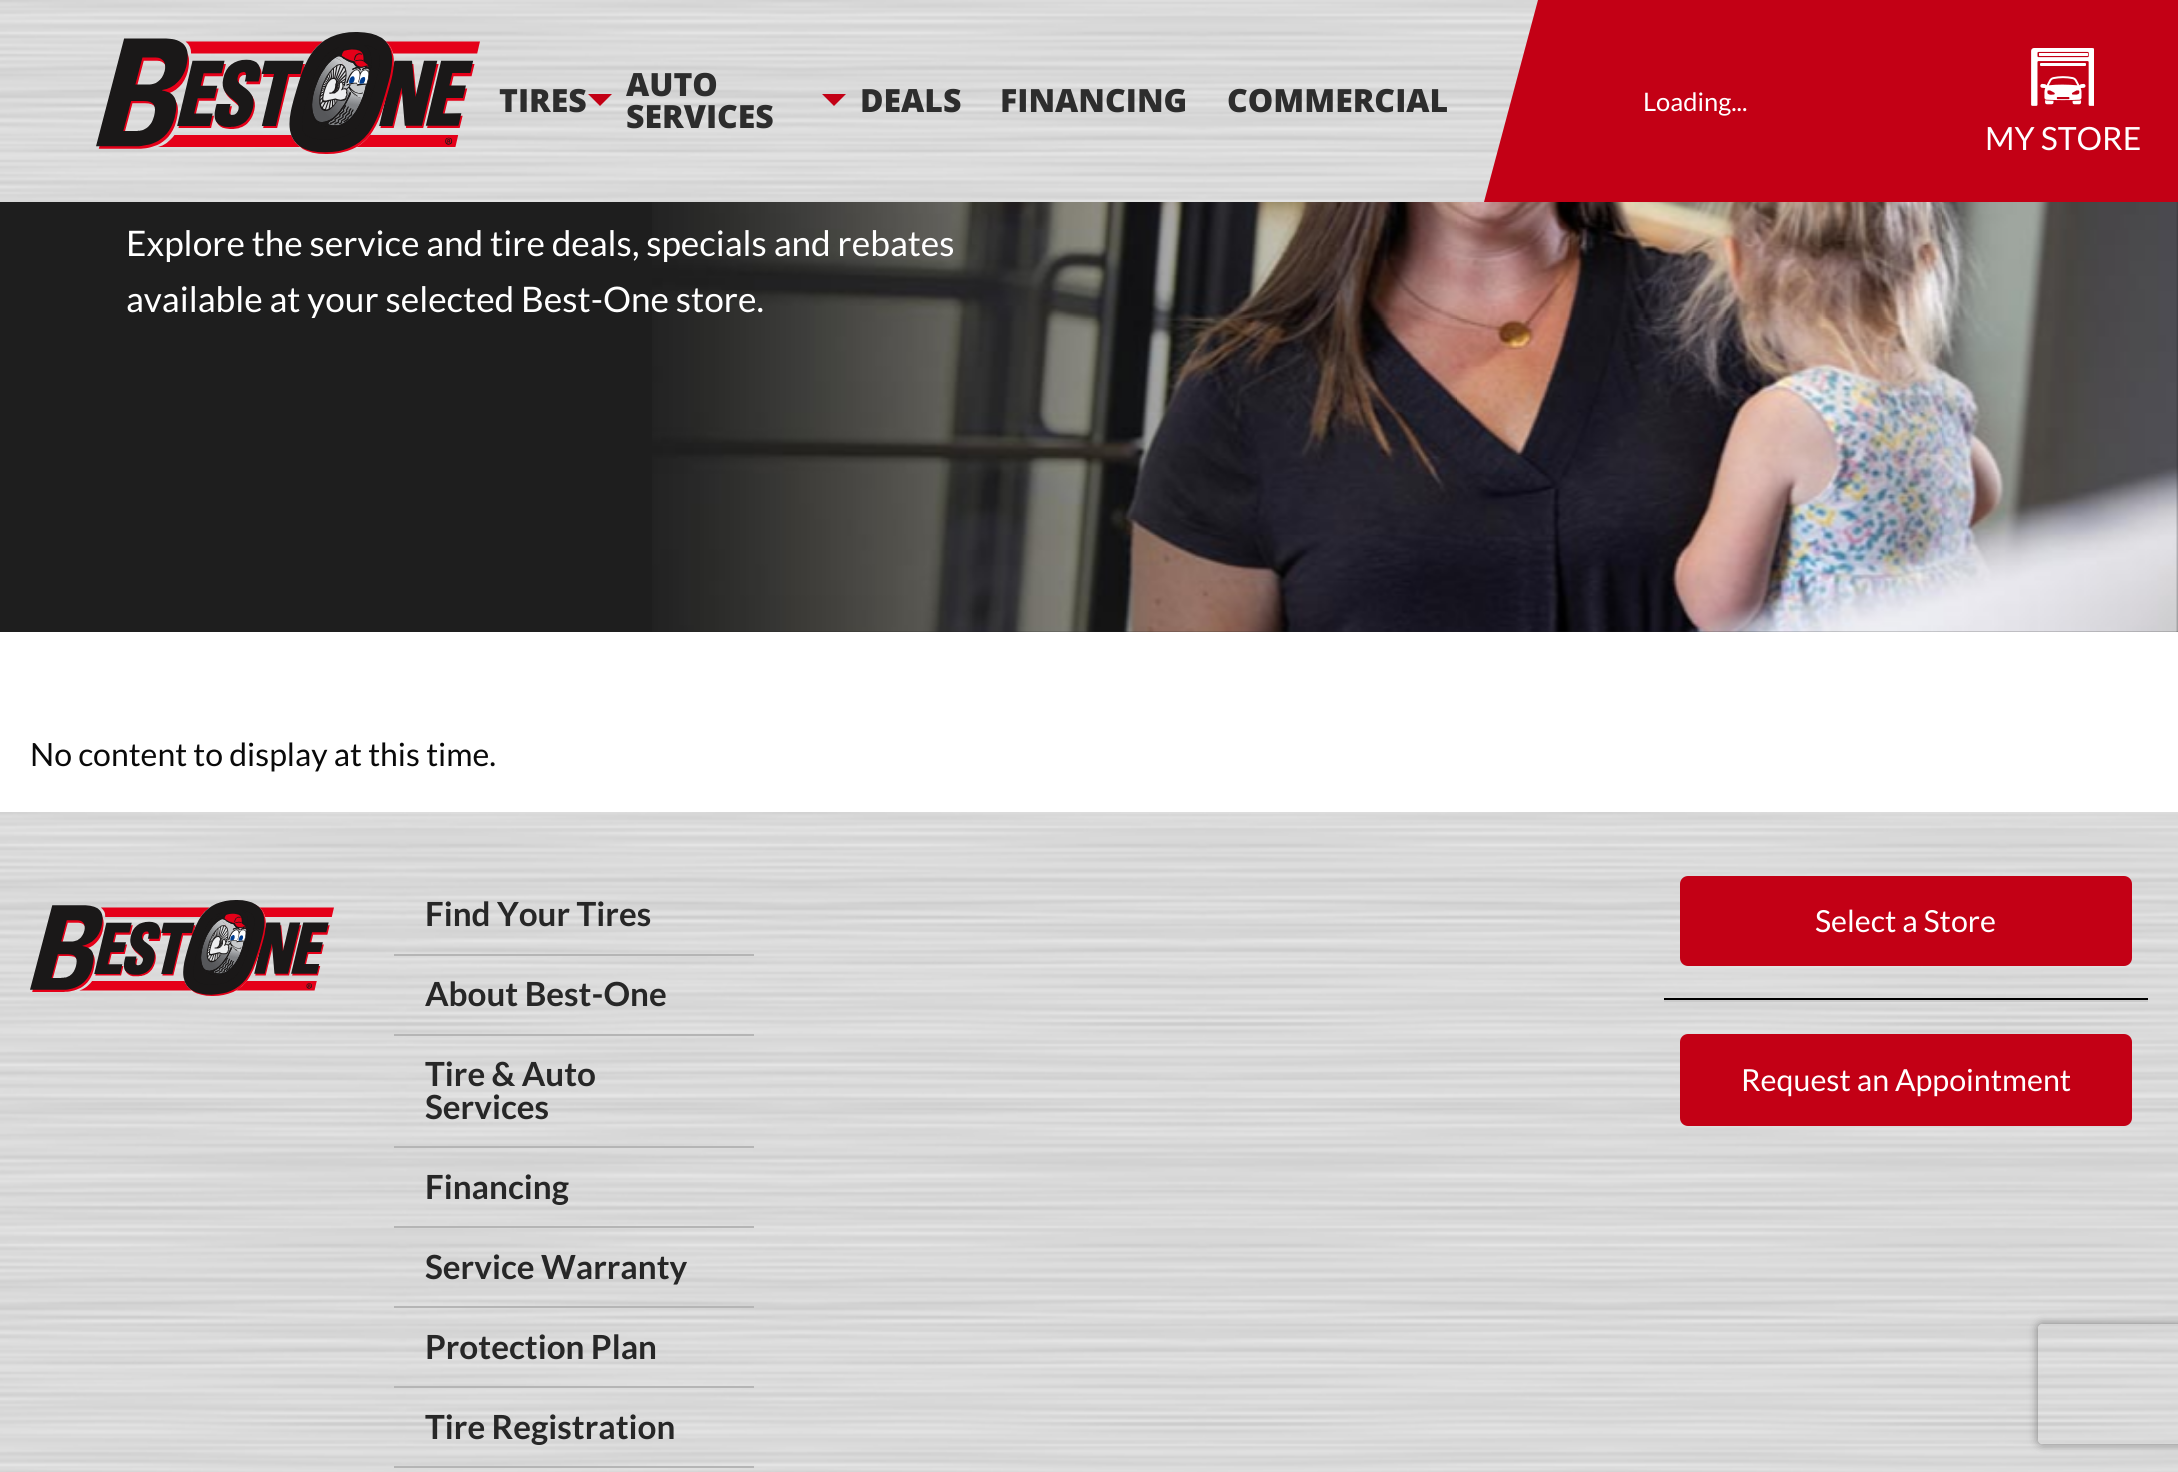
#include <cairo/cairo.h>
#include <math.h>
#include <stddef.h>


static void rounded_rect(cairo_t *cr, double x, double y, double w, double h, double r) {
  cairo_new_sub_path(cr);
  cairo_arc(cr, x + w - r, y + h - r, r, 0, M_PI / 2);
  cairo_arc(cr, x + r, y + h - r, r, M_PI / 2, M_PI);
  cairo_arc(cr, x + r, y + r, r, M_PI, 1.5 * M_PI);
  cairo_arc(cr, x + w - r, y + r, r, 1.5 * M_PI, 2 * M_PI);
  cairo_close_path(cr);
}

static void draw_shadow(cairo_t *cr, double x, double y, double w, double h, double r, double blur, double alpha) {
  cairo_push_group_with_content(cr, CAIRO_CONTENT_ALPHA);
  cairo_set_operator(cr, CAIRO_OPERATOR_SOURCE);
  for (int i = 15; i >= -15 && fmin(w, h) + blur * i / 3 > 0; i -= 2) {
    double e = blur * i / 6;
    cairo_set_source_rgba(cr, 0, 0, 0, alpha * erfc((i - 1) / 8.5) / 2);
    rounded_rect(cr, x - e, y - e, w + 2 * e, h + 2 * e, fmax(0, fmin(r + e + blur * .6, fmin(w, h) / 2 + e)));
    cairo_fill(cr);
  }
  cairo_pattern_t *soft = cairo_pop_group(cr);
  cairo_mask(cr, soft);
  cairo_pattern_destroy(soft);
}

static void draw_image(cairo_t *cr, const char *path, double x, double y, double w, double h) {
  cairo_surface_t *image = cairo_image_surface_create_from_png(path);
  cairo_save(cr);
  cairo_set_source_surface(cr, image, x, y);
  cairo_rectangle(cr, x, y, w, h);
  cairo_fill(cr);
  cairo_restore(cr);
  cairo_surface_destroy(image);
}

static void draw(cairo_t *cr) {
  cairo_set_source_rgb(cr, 1, 1, 1);
  cairo_paint(cr);
  draw_image(cr, "images/1.png", 0, 0, 1538, 202);
  draw_image(cr, "images/2.png", 96, 32, 384, 122);
  cairo_set_source_rgb(cr, 195 / 255.0, 0, 21 / 255.0);
  cairo_new_path(cr);
  cairo_move_to(cr, 588, 94);
  cairo_line_to(cr, 612, 94);
  cairo_line_to(cr, 600, 106);
  cairo_close_path(cr);
  cairo_fill(cr);
  cairo_new_path(cr);
  cairo_move_to(cr, 822, 94);
  cairo_line_to(cr, 846, 94);
  cairo_line_to(cr, 834, 106);
  cairo_close_path(cr);
  cairo_fill(cr);
  cairo_new_path(cr);
  cairo_move_to(cr, 1538, 0);
  cairo_line_to(cr, 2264, 0);
  cairo_line_to(cr, 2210, 202);
  cairo_line_to(cr, 1484, 202);
  cairo_close_path(cr);
  cairo_fill(cr);
  draw_image(cr, "images/3.png", 2031, 48, 63, 58);
  cairo_set_source_rgb(cr, 30 / 255.0, 30 / 255.0, 30 / 255.0);
  cairo_rectangle(cr, 0, 202, 2178, 430);
  cairo_fill(cr);
  draw_image(cr, "images/4.png", 652, 202, 1526, 430);
  draw_image(cr, "images/5.png", 0, 812, 2178, 660);
  draw_image(cr, "images/6.png", 30, 900, 304, 96);
  cairo_set_source_rgb(cr, 181 / 255.0, 181 / 255.0, 181 / 255.0);
  cairo_rectangle(cr, 394, 954, 360, 2);
  cairo_fill(cr);
  cairo_rectangle(cr, 394, 1034, 360, 2);
  cairo_fill(cr);
  cairo_rectangle(cr, 394, 1146, 360, 2);
  cairo_fill(cr);
  cairo_rectangle(cr, 394, 1226, 360, 2);
  cairo_fill(cr);
  cairo_rectangle(cr, 394, 1306, 360, 2);
  cairo_fill(cr);
  cairo_rectangle(cr, 394, 1386, 360, 2);
  cairo_fill(cr);
  cairo_rectangle(cr, 394, 1466, 360, 2);
  cairo_fill(cr);
  cairo_set_source_rgb(cr, 195 / 255.0, 0, 21 / 255.0);
  rounded_rect(cr, 1680, 876, 452, 90, 8);
  cairo_fill(cr);
  cairo_set_source_rgb(cr, 0, 0, 0);
  cairo_rectangle(cr, 1664, 998, 484, 2);
  cairo_fill(cr);
  cairo_set_source_rgb(cr, 202 / 255.0, 202 / 255.0, 202 / 255.0);
  cairo_rectangle(cr, 1664, 1000, 484, 2);
  cairo_fill(cr);
  cairo_set_source_rgb(cr, 195 / 255.0, 0, 21 / 255.0);
  rounded_rect(cr, 1680, 1034, 452, 92, 8);
  cairo_fill(cr);
  cairo_save(cr);
  cairo_set_fill_rule(cr, CAIRO_FILL_RULE_EVEN_ODD);
  cairo_new_path(cr);
  cairo_move_to(cr, 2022, 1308);
  cairo_line_to(cr, 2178, 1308);
  cairo_line_to(cr, 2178, 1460);
  cairo_line_to(cr, 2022, 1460);
  cairo_close_path(cr);
  cairo_move_to(cr, 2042, 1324);
  cairo_line_to(cr, 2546, 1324);
  cairo_curve_to(cr, 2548, 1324, 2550, 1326, 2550, 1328);
  cairo_line_to(cr, 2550, 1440);
  cairo_curve_to(cr, 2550, 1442, 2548, 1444, 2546, 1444);
  cairo_line_to(cr, 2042, 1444);
  cairo_curve_to(cr, 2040, 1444, 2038, 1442, 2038, 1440);
  cairo_line_to(cr, 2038, 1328);
  cairo_curve_to(cr, 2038, 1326, 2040, 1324, 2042, 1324);
  cairo_close_path(cr);
  cairo_clip(cr);
  cairo_set_source_rgb(cr, 128 / 255.0, 128 / 255.0, 128 / 255.0);
  draw_shadow(cr, 2038, 1324, 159, 120, 4, 5, 1);
  cairo_restore(cr);
  cairo_select_font_face(cr, "Open Sans ExtraBold", CAIRO_FONT_SLANT_NORMAL, CAIRO_FONT_WEIGHT_NORMAL);
  cairo_set_font_size(cr, 32);
  cairo_set_source_rgb(cr, 45 / 255.0, 45 / 255.0, 45 / 255.0);
  cairo_move_to(cr, 499, 112);
  cairo_show_text(cr, "TIRES");
  cairo_move_to(cr, 626, 96);
  cairo_show_text(cr, "AUTO");
  cairo_move_to(cr, 626, 128);
  cairo_show_text(cr, "SERVICES");
  cairo_move_to(cr, 860, 112);
  cairo_show_text(cr, "DEALS");
  cairo_move_to(cr, 1000, 112);
  cairo_show_text(cr, "FINANCING");
  cairo_move_to(cr, 1227, 112);
  cairo_show_text(cr, "COMMERCIAL");
  cairo_select_font_face(cr, "Lato", CAIRO_FONT_SLANT_NORMAL, CAIRO_FONT_WEIGHT_NORMAL);
  cairo_set_font_size(cr, 25.5);
  cairo_set_source_rgb(cr, 1, 1, 1);
  cairo_move_to(cr, 1643, 111);
  cairo_show_text(cr, "Loading...");
  cairo_set_font_size(cr, 32);
  cairo_move_to(cr, 1985, 150);
  cairo_show_text(cr, "MY STORE");
  cairo_set_font_size(cr, 35.2);
  cairo_move_to(cr, 126, 256);
  cairo_show_text(cr, "Explore the service and tire deals, specials and rebates");
  cairo_move_to(cr, 126, 312);
  cairo_show_text(cr, "available at your selected Best-One store.");
  cairo_set_font_size(cr, 32);
  cairo_set_source_rgb(cr, 10 / 255.0, 10 / 255.0, 10 / 255.0);
  cairo_move_to(cr, 30, 766);
  cairo_show_text(cr, "No content to display at this time.");
  cairo_select_font_face(cr, "Lato", CAIRO_FONT_SLANT_NORMAL, CAIRO_FONT_WEIGHT_BOLD);
  cairo_set_font_size(cr, 33.25);
  cairo_set_source_rgb(cr, 39 / 255.0, 39 / 255.0, 39 / 255.0);
  cairo_move_to(cr, 425, 926);
  cairo_show_text(cr, "Find Your Tires");
  cairo_move_to(cr, 425, 1006);
  cairo_show_text(cr, "About Best-One");
  cairo_move_to(cr, 425, 1086);
  cairo_show_text(cr, "Tire & Auto");
  cairo_move_to(cr, 425, 1119);
  cairo_show_text(cr, "Services");
  cairo_move_to(cr, 425, 1199);
  cairo_show_text(cr, "Financing");
  cairo_move_to(cr, 425, 1279);
  cairo_show_text(cr, "Service Warranty");
  cairo_move_to(cr, 425, 1359);
  cairo_show_text(cr, "Protection Plan");
  cairo_move_to(cr, 425, 1439);
  cairo_show_text(cr, "Tire Registration");
  cairo_select_font_face(cr, "Lato", CAIRO_FONT_SLANT_NORMAL, CAIRO_FONT_WEIGHT_NORMAL);
  cairo_set_font_size(cr, 30.4);
  cairo_set_source_rgb(cr, 1, 1, 1);
  cairo_move_to(cr, 1815, 932);
  cairo_show_text(cr, "Select a Store");
  cairo_move_to(cr, 1741, 1091);
  cairo_show_text(cr, "Request an Appointment");
}

int main(void) {
  cairo_surface_t *surface = cairo_image_surface_create(CAIRO_FORMAT_RGB24, 2178, 1472);
  cairo_t *cr = cairo_create(surface);
  cairo_font_options_t *options = cairo_font_options_create();
  cairo_font_options_set_hint_metrics(options, CAIRO_HINT_METRICS_OFF);
  cairo_font_options_set_hint_style(options, CAIRO_HINT_STYLE_NONE);
  cairo_set_font_options(cr, options);
  cairo_set_miter_limit(cr, 4);
  draw(cr);
  cairo_surface_write_to_png(surface, "out.png");
  cairo_font_options_destroy(options);
  cairo_destroy(cr);
  cairo_surface_destroy(surface);
  return 0;
}
